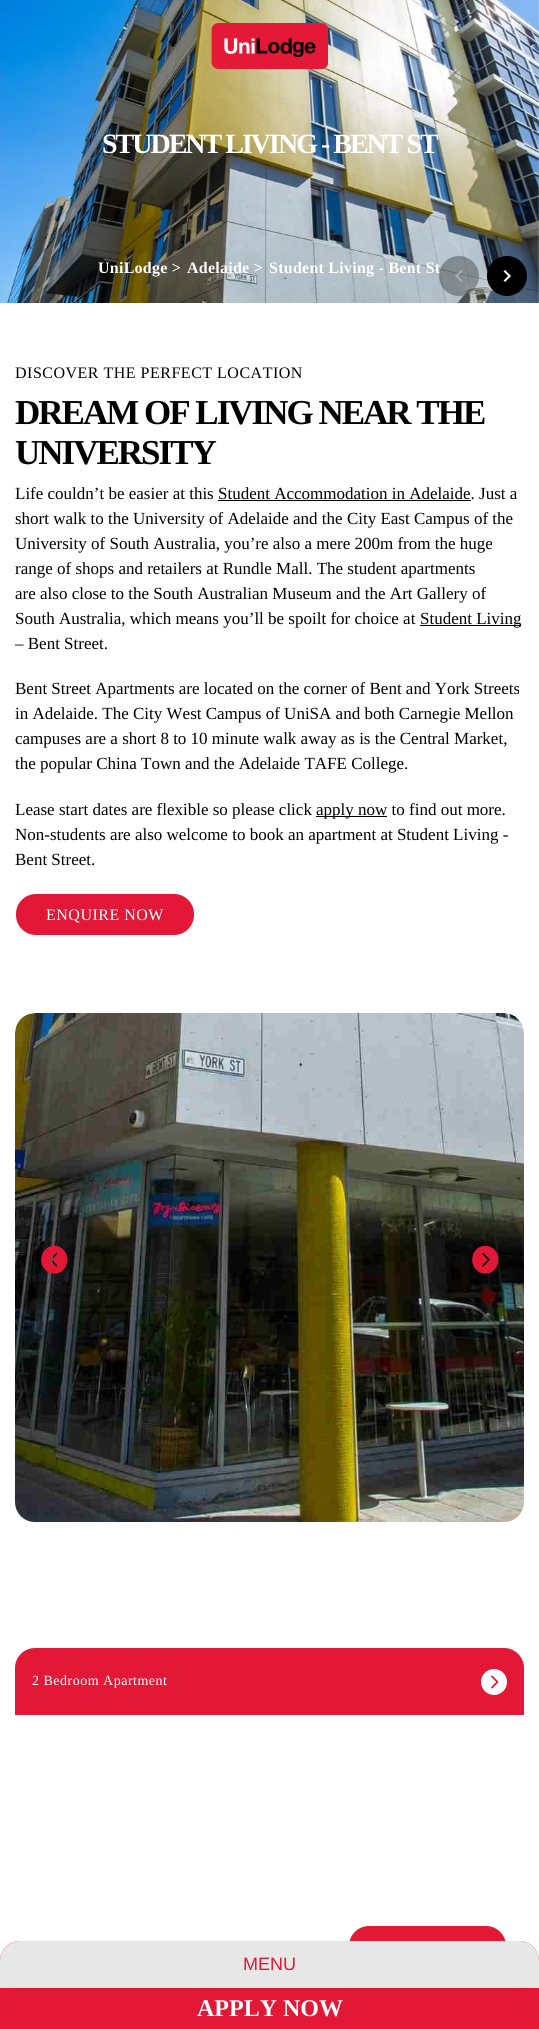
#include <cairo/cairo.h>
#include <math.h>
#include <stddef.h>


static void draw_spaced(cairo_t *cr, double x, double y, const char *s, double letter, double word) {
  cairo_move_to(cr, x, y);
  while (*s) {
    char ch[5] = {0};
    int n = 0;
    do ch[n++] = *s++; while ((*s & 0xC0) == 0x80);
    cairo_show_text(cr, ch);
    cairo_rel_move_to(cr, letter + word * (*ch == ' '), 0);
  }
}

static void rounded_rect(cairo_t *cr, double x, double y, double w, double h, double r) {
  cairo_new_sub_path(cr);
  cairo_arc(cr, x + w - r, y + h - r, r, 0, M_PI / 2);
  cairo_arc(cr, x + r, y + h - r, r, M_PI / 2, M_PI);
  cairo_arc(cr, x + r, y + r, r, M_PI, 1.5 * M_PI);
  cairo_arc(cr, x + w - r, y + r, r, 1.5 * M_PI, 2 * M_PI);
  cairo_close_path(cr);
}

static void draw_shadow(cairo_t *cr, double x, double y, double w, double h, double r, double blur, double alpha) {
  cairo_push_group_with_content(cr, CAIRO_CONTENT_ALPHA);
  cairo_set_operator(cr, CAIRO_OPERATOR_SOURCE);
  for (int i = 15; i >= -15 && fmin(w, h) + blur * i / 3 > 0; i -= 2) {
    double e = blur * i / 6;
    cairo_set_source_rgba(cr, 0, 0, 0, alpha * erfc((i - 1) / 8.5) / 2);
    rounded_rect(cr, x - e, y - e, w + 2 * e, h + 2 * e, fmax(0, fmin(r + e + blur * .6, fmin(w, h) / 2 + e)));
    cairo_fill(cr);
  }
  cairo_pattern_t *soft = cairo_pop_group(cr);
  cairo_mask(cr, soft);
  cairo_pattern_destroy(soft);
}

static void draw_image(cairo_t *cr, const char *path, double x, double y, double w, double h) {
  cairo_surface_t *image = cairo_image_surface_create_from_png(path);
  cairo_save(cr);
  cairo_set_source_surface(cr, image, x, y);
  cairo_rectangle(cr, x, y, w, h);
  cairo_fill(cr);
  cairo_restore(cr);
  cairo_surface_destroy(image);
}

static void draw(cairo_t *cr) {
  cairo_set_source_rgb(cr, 1, 1, 1);
  cairo_paint(cr);
  draw_image(cr, "images/2.png", 0, 0, 539, 303);
  draw_image(cr, "images/1.png", 211, 23, 117, 46);
  cairo_set_source_rgb(cr, 0, 0, 0);
  cairo_arc(cr, 507, 276, 20, 0, 2 * M_PI);
  cairo_fill(cr);
  draw_image(cr, "images/4.png", 503, 270, 8, 12);
  cairo_rectangle(cr, 218, 500, 253, 1);
  cairo_fill(cr);
  cairo_rectangle(cr, 420, 625, 101, 1);
  cairo_fill(cr);
  cairo_rectangle(cr, 316, 816, 71, 1);
  cairo_fill(cr);
  cairo_set_source_rgb(cr, 226 / 255.0, 24 / 255.0, 54 / 255.0);
  rounded_rect(cr, 16, 894, 178, 41, 20);
  cairo_fill(cr);
  draw_image(cr, "images/5.png", 15, 1013, 509, 509);
  draw_image(cr, "images/6.png", 41, 1245, 27, 29);
  draw_image(cr, "images/7.png", 472, 1245, 27, 29);
  cairo_new_path(cr);
  cairo_move_to(cr, 35, 1648);
  cairo_line_to(cr, 504, 1648);
  cairo_curve_to(cr, 515, 1648, 524, 1657, 524, 1668);
  cairo_line_to(cr, 524, 1715);
  cairo_line_to(cr, 15, 1715);
  cairo_line_to(cr, 15, 1668);
  cairo_curve_to(cr, 15, 1657, 24, 1648, 35, 1648);
  cairo_close_path(cr);
  cairo_fill(cr);
  draw_image(cr, "images/8.png", 481, 1669, 26, 26);
  rounded_rect(cr, 349, 1926, 157, 41, 20);
  cairo_fill(cr);
  cairo_new_path(cr);
  cairo_move_to(cr, 20, 1941);
  cairo_line_to(cr, 519, 1941);
  cairo_curve_to(cr, 530, 1941, 539, 1950, 539, 1961);
  cairo_line_to(cr, 539, 2029);
  cairo_line_to(cr, 0, 2029);
  cairo_line_to(cr, 0, 1961);
  cairo_curve_to(cr, 0, 1950, 9, 1941, 20, 1941);
  cairo_close_path(cr);
  cairo_fill(cr);
  cairo_save(cr);
  cairo_new_path(cr);
  cairo_move_to(cr, 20, 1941);
  cairo_line_to(cr, 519, 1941);
  cairo_curve_to(cr, 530, 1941, 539, 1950, 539, 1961);
  cairo_line_to(cr, 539, 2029);
  cairo_line_to(cr, 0, 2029);
  cairo_line_to(cr, 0, 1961);
  cairo_curve_to(cr, 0, 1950, 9, 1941, 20, 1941);
  cairo_close_path(cr);
  cairo_clip(cr);
  cairo_set_source_rgb(cr, 0, 0, 0);
  draw_shadow(cr, 0, 1939, 539, 47, 20, 3, 0.19);
  cairo_restore(cr);
  cairo_set_source_rgb(cr, 231 / 255.0, 231 / 255.0, 232 / 255.0);
  cairo_new_path(cr);
  cairo_move_to(cr, 20, 1941);
  cairo_line_to(cr, 519, 1941);
  cairo_curve_to(cr, 530, 1941, 539, 1950, 539, 1961);
  cairo_line_to(cr, 539, 1988);
  cairo_line_to(cr, 0, 1988);
  cairo_line_to(cr, 0, 1961);
  cairo_curve_to(cr, 0, 1950, 9, 1941, 20, 1941);
  cairo_close_path(cr);
  cairo_fill(cr);
  cairo_select_font_face(cr, "Liberation Serif", CAIRO_FONT_SLANT_NORMAL, CAIRO_FONT_WEIGHT_BOLD);
  cairo_set_font_size(cr, 28);
  cairo_set_source_rgb(cr, 1, 1, 1);
  draw_spaced(cr, 102, 153, "STUDENT LIVING - BENT ST", -2, 0);
  cairo_set_font_size(cr, 16);
  draw_spaced(cr, 98, 273, "UniLodge >", 0.25, 0);
  draw_spaced(cr, 187, 273, "Adelaide >", 0.25, 0);
  draw_spaced(cr, 269, 273, "Student Living - Bent St", 0.25, 0);
  cairo_set_source_rgba(cr, 0, 0, 0, 0.3);
  cairo_new_path(cr);
  cairo_arc(cr, 459, 276, 20, 0, 2 * M_PI);
  cairo_fill(cr);
  draw_image(cr, "images/3.png", 455, 270, 8, 12);
  cairo_select_font_face(cr, "Liberation Serif", CAIRO_FONT_SLANT_NORMAL, CAIRO_FONT_WEIGHT_NORMAL);
  cairo_set_source_rgb(cr, 0, 0, 0);
  draw_spaced(cr, 15, 378, "DISCOVER THE PERFECT LOCATION", 0.5, 0);
  cairo_select_font_face(cr, "Liberation Serif", CAIRO_FONT_SLANT_NORMAL, CAIRO_FONT_WEIGHT_BOLD);
  cairo_set_font_size(cr, 35);
  draw_spaced(cr, 15, 424, "DREAM OF LIVING NEAR THE", -2, 0);
  draw_spaced(cr, 15, 464, "UNIVERSITY", -2, 0);
  cairo_select_font_face(cr, "Liberation Serif", CAIRO_FONT_SLANT_NORMAL, CAIRO_FONT_WEIGHT_NORMAL);
  cairo_set_font_size(cr, 17);
  cairo_move_to(cr, 15, 499);
  cairo_show_text(cr, "Life couldn’t be easier at this Student Accommodation in Adelaide. Just a");
  cairo_move_to(cr, 15, 524);
  cairo_show_text(cr, "short walk to the University of Adelaide and the City East Campus of the");
  cairo_move_to(cr, 15, 549);
  cairo_show_text(cr, "University of South Australia, you’re also a mere 200m from the huge");
  cairo_move_to(cr, 15, 574);
  cairo_show_text(cr, "range of shops and retailers at Rundle Mall. The student apartments");
  cairo_move_to(cr, 15, 599);
  cairo_show_text(cr, "are also close to the South Australian Museum and the Art Gallery of");
  cairo_move_to(cr, 15, 624);
  cairo_show_text(cr, "South Australia, which means you’ll be spoilt for choice at");
  cairo_move_to(cr, 420, 624);
  cairo_show_text(cr, "Student Living");
  cairo_move_to(cr, 15, 649);
  cairo_show_text(cr, "– Bent Street.");
  cairo_move_to(cr, 15, 694);
  cairo_show_text(cr, "Bent Street Apartments are located on the corner of Bent and York Streets");
  cairo_move_to(cr, 15, 719);
  cairo_show_text(cr, "in Adelaide. The City West Campus of UniSA and both Carnegie Mellon");
  cairo_move_to(cr, 15, 744);
  cairo_show_text(cr, "campuses are a short 8 to 10 minute walk away as is the Central Market,");
  cairo_move_to(cr, 15, 769);
  cairo_show_text(cr, "the popular China Town and the Adelaide TAFE College.");
  cairo_move_to(cr, 15, 815);
  cairo_show_text(cr, "Lease start dates are flexible so please click");
  cairo_move_to(cr, 316, 815);
  cairo_show_text(cr, "apply now to find out more.");
  cairo_move_to(cr, 15, 840);
  cairo_show_text(cr, "Non-students are also welcome to book an apartment at Student Living -");
  cairo_move_to(cr, 15, 865);
  cairo_show_text(cr, "Bent Street.");
  cairo_set_font_size(cr, 16);
  cairo_set_source_rgb(cr, 1, 1, 1);
  draw_spaced(cr, 46, 920, "ENQUIRE NOW", 0.5, 0);
  cairo_set_font_size(cr, 14);
  draw_spaced(cr, 32, 1685, "2 Bedroom Apartment", 0.5, 0);
  cairo_select_font_face(cr, "Liberation Sans", CAIRO_FONT_SLANT_NORMAL, CAIRO_FONT_WEIGHT_NORMAL);
  cairo_set_font_size(cr, 18);
  cairo_set_source_rgb(cr, 226 / 255.0, 24 / 255.0, 54 / 255.0);
  cairo_move_to(cr, 243, 1970);
  cairo_show_text(cr, "MENU");
  cairo_select_font_face(cr, "Liberation Serif", CAIRO_FONT_SLANT_NORMAL, CAIRO_FONT_WEIGHT_BOLD);
  cairo_set_font_size(cr, 24);
  cairo_set_source_rgb(cr, 1, 1, 1);
  cairo_move_to(cr, 197, 2016);
  cairo_show_text(cr, "APPLY NOW");
}

int main(void) {
  cairo_surface_t *surface = cairo_image_surface_create(CAIRO_FORMAT_RGB24, 539, 2029);
  cairo_t *cr = cairo_create(surface);
  cairo_font_options_t *options = cairo_font_options_create();
  cairo_font_options_set_hint_metrics(options, CAIRO_HINT_METRICS_OFF);
  cairo_font_options_set_hint_style(options, CAIRO_HINT_STYLE_NONE);
  cairo_set_font_options(cr, options);
  cairo_set_miter_limit(cr, 4);
  draw(cr);
  cairo_surface_write_to_png(surface, "out.png");
  cairo_font_options_destroy(options);
  cairo_destroy(cr);
  cairo_surface_destroy(surface);
  return 0;
}
